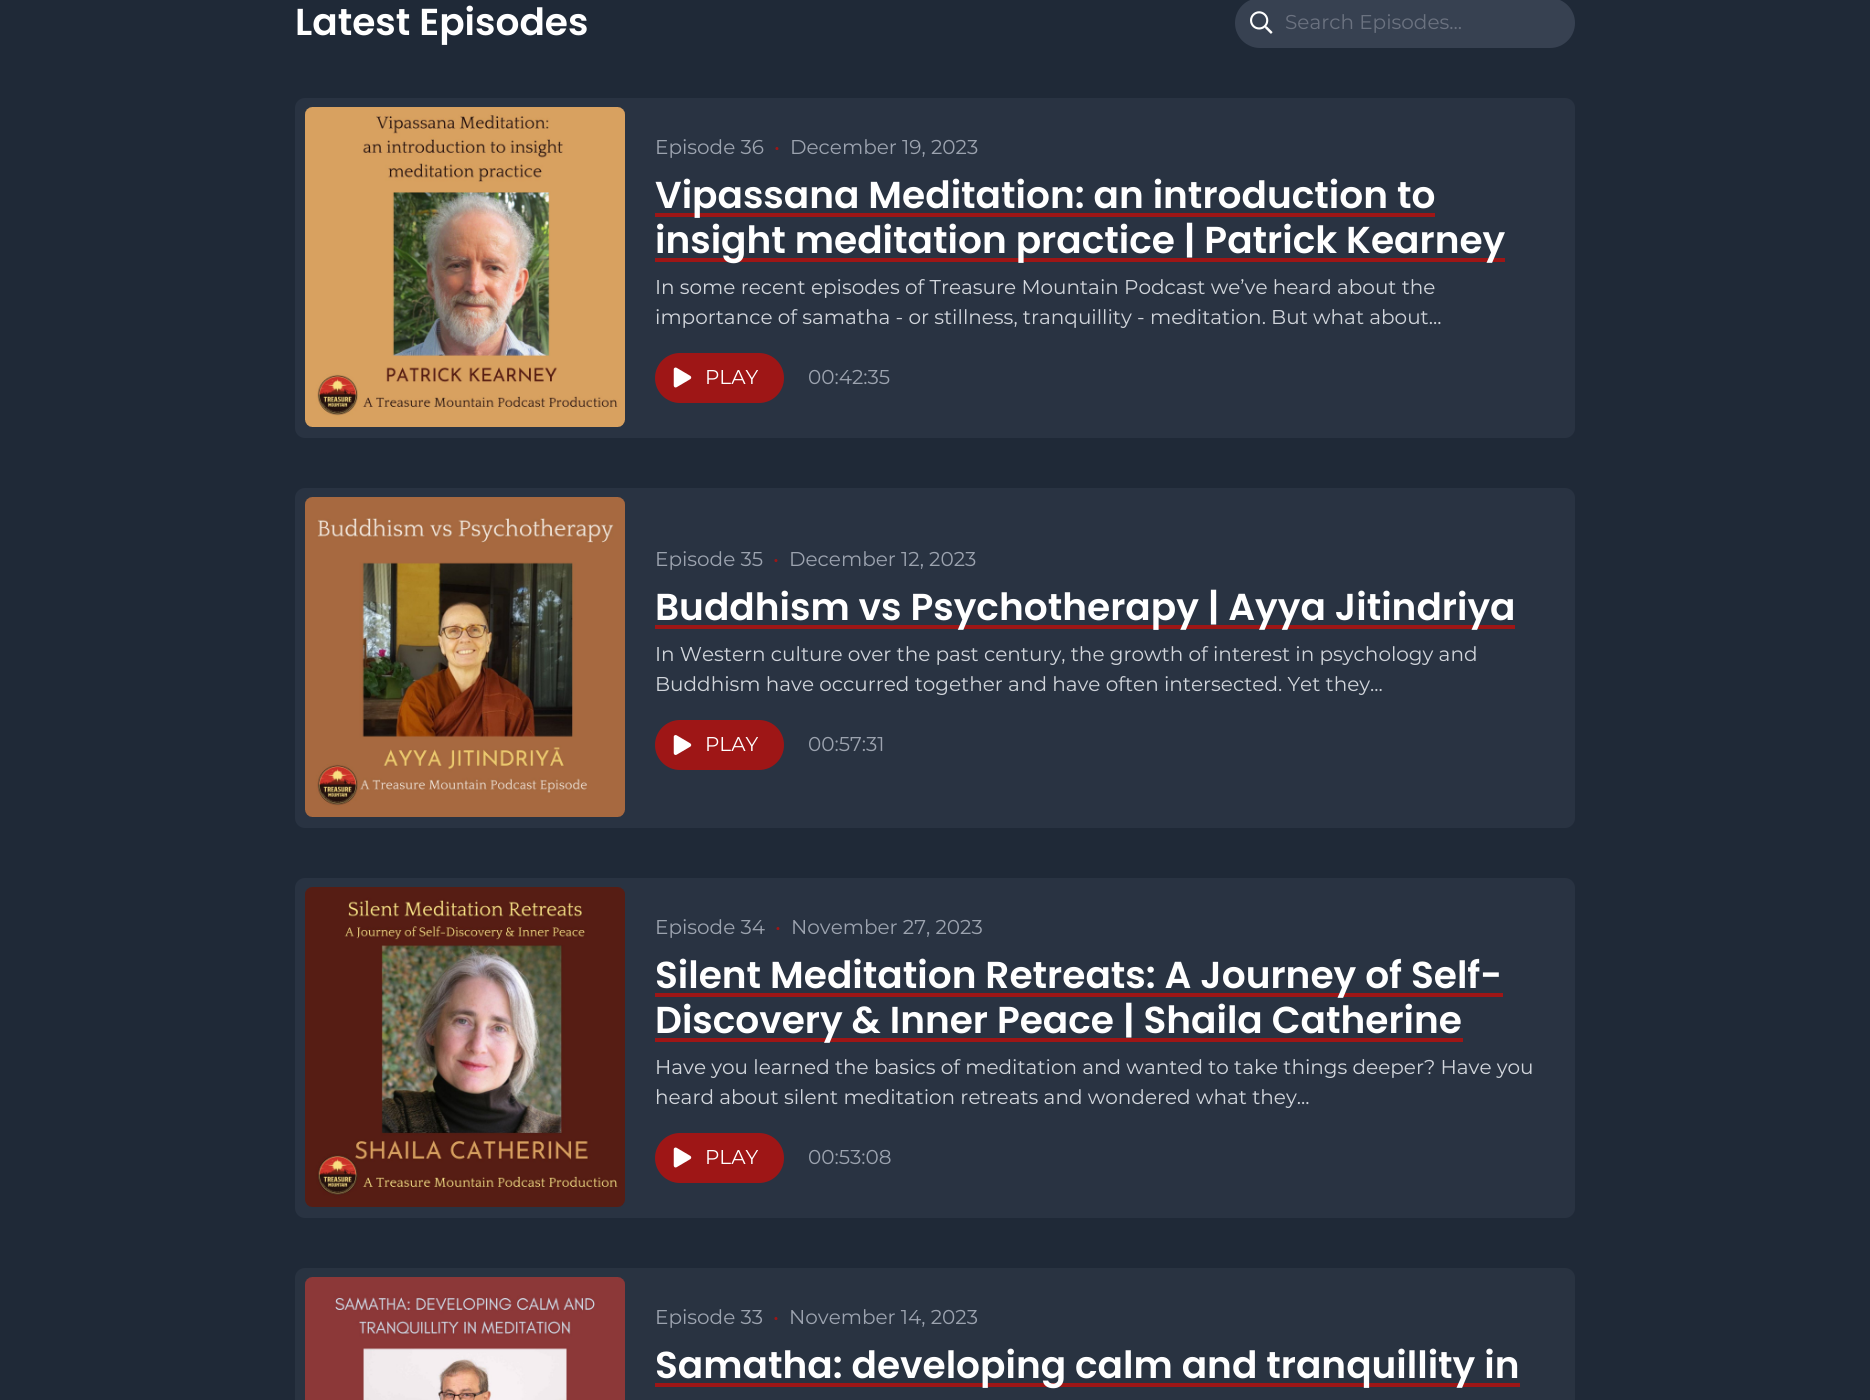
#include <cairo/cairo.h>
#include <math.h>
#include <stddef.h>


static void rounded_rect(cairo_t *cr, double x, double y, double w, double h, double r) {
  cairo_new_sub_path(cr);
  cairo_arc(cr, x + w - r, y + h - r, r, 0, M_PI / 2);
  cairo_arc(cr, x + r, y + h - r, r, M_PI / 2, M_PI);
  cairo_arc(cr, x + r, y + r, r, M_PI, 1.5 * M_PI);
  cairo_arc(cr, x + w - r, y + r, r, 1.5 * M_PI, 2 * M_PI);
  cairo_close_path(cr);
}

static void draw_image(cairo_t *cr, const char *path, double x, double y, double w, double h) {
  cairo_surface_t *image = cairo_image_surface_create_from_png(path);
  cairo_save(cr);
  cairo_set_source_surface(cr, image, x, y);
  cairo_rectangle(cr, x, y, w, h);
  cairo_fill(cr);
  cairo_restore(cr);
  cairo_surface_destroy(image);
}

static void draw(cairo_t *cr) {
  cairo_set_source_rgb(cr, 31 / 255.0, 41 / 255.0, 55 / 255.0);
  cairo_paint(cr);
  cairo_set_source_rgb(cr, 55 / 255.0, 65 / 255.0, 81 / 255.0);
  rounded_rect(cr, 1235, -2, 340, 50, 25);
  cairo_fill(cr);
  draw_image(cr, "images/1.png", 1250, 11, 23, 23);
  cairo_set_source_rgb(cr, 41 / 255.0, 51 / 255.0, 66 / 255.0);
  rounded_rect(cr, 295, 98, 1280, 340, 10);
  cairo_fill(cr);
  draw_image(cr, "images/2.png", 305, 107, 320, 320);
  cairo_set_source_rgb(cr, 158 / 255.0, 22 / 255.0, 22 / 255.0);
  cairo_rectangle(cr, 655, 213, 780, 4);
  cairo_fill(cr);
  cairo_rectangle(cr, 655, 258, 850, 4);
  cairo_fill(cr);
  rounded_rect(cr, 655, 353, 129, 50, 25);
  cairo_fill(cr);
  draw_image(cr, "images/3.png", 673, 367, 19, 21);
  cairo_set_source_rgb(cr, 41 / 255.0, 51 / 255.0, 66 / 255.0);
  rounded_rect(cr, 295, 488, 1280, 340, 10);
  cairo_fill(cr);
  draw_image(cr, "images/4.png", 305, 497, 320, 320);
  cairo_set_source_rgb(cr, 158 / 255.0, 22 / 255.0, 22 / 255.0);
  cairo_rectangle(cr, 655, 625, 860, 4);
  cairo_fill(cr);
  rounded_rect(cr, 655, 720, 129, 50, 25);
  cairo_fill(cr);
  draw_image(cr, "images/5.png", 673, 735, 19, 20);
  cairo_set_source_rgb(cr, 41 / 255.0, 51 / 255.0, 66 / 255.0);
  rounded_rect(cr, 295, 878, 1280, 340, 10);
  cairo_fill(cr);
  draw_image(cr, "images/6.png", 305, 887, 320, 320);
  cairo_set_source_rgb(cr, 158 / 255.0, 22 / 255.0, 22 / 255.0);
  cairo_rectangle(cr, 655, 993, 848, 4);
  cairo_fill(cr);
  cairo_rectangle(cr, 655, 1038, 808, 4);
  cairo_fill(cr);
  rounded_rect(cr, 655, 1133, 129, 50, 25);
  cairo_fill(cr);
  draw_image(cr, "images/3.png", 673, 1147, 19, 21);
  cairo_set_source_rgb(cr, 41 / 255.0, 51 / 255.0, 65 / 255.0);
  rounded_rect(cr, 295, 1268, 1280, 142, 10);
  cairo_fill(cr);
  draw_image(cr, "images/7.png", 305, 1277, 320, 123);
  cairo_set_source_rgb(cr, 158 / 255.0, 22 / 255.0, 22 / 255.0);
  cairo_rectangle(cr, 655, 1383, 865, 4);
  cairo_fill(cr);
  cairo_select_font_face(cr, "Poppins SemiBold", CAIRO_FONT_SLANT_NORMAL, CAIRO_FONT_WEIGHT_NORMAL);
  cairo_set_font_size(cr, 37.5);
  cairo_set_source_rgb(cr, 1, 1, 1);
  cairo_move_to(cr, 295, 35);
  cairo_show_text(cr, "Latest Episodes");
  cairo_select_font_face(cr, "Montserrat", CAIRO_FONT_SLANT_NORMAL, CAIRO_FONT_WEIGHT_NORMAL);
  cairo_set_font_size(cr, 20);
  cairo_set_source_rgb(cr, 107 / 255.0, 114 / 255.0, 128 / 255.0);
  cairo_move_to(cr, 1285, 29);
  cairo_show_text(cr, "Search Episodes...");
  cairo_set_source_rgb(cr, 156 / 255.0, 163 / 255.0, 175 / 255.0);
  cairo_move_to(cr, 655, 154);
  cairo_show_text(cr, "Episode 36");
  cairo_set_source_rgb(cr, 158 / 255.0, 22 / 255.0, 22 / 255.0);
  cairo_move_to(cr, 774, 154);
  cairo_show_text(cr, "•");
  cairo_set_source_rgb(cr, 156 / 255.0, 163 / 255.0, 175 / 255.0);
  cairo_move_to(cr, 790, 154);
  cairo_show_text(cr, "December 19, 2023");
  cairo_select_font_face(cr, "Poppins SemiBold", CAIRO_FONT_SLANT_NORMAL, CAIRO_FONT_WEIGHT_NORMAL);
  cairo_set_font_size(cr, 37.5);
  cairo_set_source_rgb(cr, 1, 1, 1);
  cairo_move_to(cr, 655, 208);
  cairo_show_text(cr, "Vipassana Meditation: an introduction to");
  cairo_move_to(cr, 655, 253);
  cairo_show_text(cr, "insight meditation practice | Patrick Kearney");
  cairo_select_font_face(cr, "Montserrat", CAIRO_FONT_SLANT_NORMAL, CAIRO_FONT_WEIGHT_NORMAL);
  cairo_set_font_size(cr, 20);
  cairo_set_source_rgb(cr, 209 / 255.0, 213 / 255.0, 219 / 255.0);
  cairo_move_to(cr, 655, 294);
  cairo_show_text(cr, "In some recent episodes of Treasure Mountain Podcast we’ve heard about the");
  cairo_move_to(cr, 655, 324);
  cairo_show_text(cr, "importance of samatha - or stillness, tranquillity - meditation. But what about...");
  cairo_set_source_rgb(cr, 1, 1, 1);
  cairo_move_to(cr, 705, 384);
  cairo_show_text(cr, "PLAY");
  cairo_set_source_rgb(cr, 156 / 255.0, 163 / 255.0, 175 / 255.0);
  cairo_move_to(cr, 808, 384);
  cairo_show_text(cr, "00:42:35");
  cairo_move_to(cr, 655, 566);
  cairo_show_text(cr, "Episode 35");
  cairo_set_source_rgb(cr, 158 / 255.0, 22 / 255.0, 22 / 255.0);
  cairo_move_to(cr, 773, 566);
  cairo_show_text(cr, "•");
  cairo_set_source_rgb(cr, 156 / 255.0, 163 / 255.0, 175 / 255.0);
  cairo_move_to(cr, 789, 566);
  cairo_show_text(cr, "December 12, 2023");
  cairo_select_font_face(cr, "Poppins SemiBold", CAIRO_FONT_SLANT_NORMAL, CAIRO_FONT_WEIGHT_NORMAL);
  cairo_set_font_size(cr, 37.5);
  cairo_set_source_rgb(cr, 1, 1, 1);
  cairo_move_to(cr, 655, 620);
  cairo_show_text(cr, "Buddhism vs Psychotherapy | Ayya Jitindriya");
  cairo_select_font_face(cr, "Montserrat", CAIRO_FONT_SLANT_NORMAL, CAIRO_FONT_WEIGHT_NORMAL);
  cairo_set_font_size(cr, 20);
  cairo_set_source_rgb(cr, 209 / 255.0, 213 / 255.0, 219 / 255.0);
  cairo_move_to(cr, 655, 661);
  cairo_show_text(cr, "In Western culture over the past century, the growth of interest in psychology and");
  cairo_move_to(cr, 655, 691);
  cairo_show_text(cr, "Buddhism have occurred together and have often intersected. Yet they...");
  cairo_set_source_rgb(cr, 1, 1, 1);
  cairo_move_to(cr, 705, 751);
  cairo_show_text(cr, "PLAY");
  cairo_set_source_rgb(cr, 156 / 255.0, 163 / 255.0, 175 / 255.0);
  cairo_move_to(cr, 808, 751);
  cairo_show_text(cr, "00:57:31");
  cairo_move_to(cr, 655, 934);
  cairo_show_text(cr, "Episode 34");
  cairo_set_source_rgb(cr, 158 / 255.0, 22 / 255.0, 22 / 255.0);
  cairo_move_to(cr, 775, 934);
  cairo_show_text(cr, "•");
  cairo_set_source_rgb(cr, 156 / 255.0, 163 / 255.0, 175 / 255.0);
  cairo_move_to(cr, 791, 934);
  cairo_show_text(cr, "November 27, 2023");
  cairo_select_font_face(cr, "Poppins SemiBold", CAIRO_FONT_SLANT_NORMAL, CAIRO_FONT_WEIGHT_NORMAL);
  cairo_set_font_size(cr, 37.5);
  cairo_set_source_rgb(cr, 1, 1, 1);
  cairo_move_to(cr, 655, 988);
  cairo_show_text(cr, "Silent Meditation Retreats: A Journey of Self-");
  cairo_move_to(cr, 655, 1033);
  cairo_show_text(cr, "Discovery & Inner Peace | Shaila Catherine");
  cairo_select_font_face(cr, "Montserrat", CAIRO_FONT_SLANT_NORMAL, CAIRO_FONT_WEIGHT_NORMAL);
  cairo_set_font_size(cr, 20);
  cairo_set_source_rgb(cr, 209 / 255.0, 213 / 255.0, 219 / 255.0);
  cairo_move_to(cr, 655, 1074);
  cairo_show_text(cr, "Have you learned the basics of meditation and wanted to take things deeper? Have you");
  cairo_move_to(cr, 655, 1104);
  cairo_show_text(cr, "heard about silent meditation retreats and wondered what they...");
  cairo_set_source_rgb(cr, 1, 1, 1);
  cairo_move_to(cr, 705, 1164);
  cairo_show_text(cr, "PLAY");
  cairo_set_source_rgb(cr, 156 / 255.0, 163 / 255.0, 175 / 255.0);
  cairo_move_to(cr, 808, 1164);
  cairo_show_text(cr, "00:53:08");
  cairo_move_to(cr, 655, 1324);
  cairo_show_text(cr, "Episode 33");
  cairo_set_source_rgb(cr, 158 / 255.0, 22 / 255.0, 22 / 255.0);
  cairo_move_to(cr, 773, 1324);
  cairo_show_text(cr, "•");
  cairo_set_source_rgb(cr, 156 / 255.0, 163 / 255.0, 175 / 255.0);
  cairo_move_to(cr, 789, 1324);
  cairo_show_text(cr, "November 14, 2023");
  cairo_select_font_face(cr, "Poppins SemiBold", CAIRO_FONT_SLANT_NORMAL, CAIRO_FONT_WEIGHT_NORMAL);
  cairo_set_font_size(cr, 37.5);
  cairo_set_source_rgb(cr, 1, 1, 1);
  cairo_move_to(cr, 655, 1378);
  cairo_show_text(cr, "Samatha: developing calm and tranquillity in");
}

int main(void) {
  cairo_surface_t *surface = cairo_image_surface_create(CAIRO_FORMAT_RGB24, 1870, 1400);
  cairo_t *cr = cairo_create(surface);
  cairo_font_options_t *options = cairo_font_options_create();
  cairo_font_options_set_hint_metrics(options, CAIRO_HINT_METRICS_OFF);
  cairo_font_options_set_hint_style(options, CAIRO_HINT_STYLE_NONE);
  cairo_set_font_options(cr, options);
  cairo_set_miter_limit(cr, 4);
  draw(cr);
  cairo_surface_write_to_png(surface, "out.png");
  cairo_font_options_destroy(options);
  cairo_destroy(cr);
  cairo_surface_destroy(surface);
  return 0;
}
